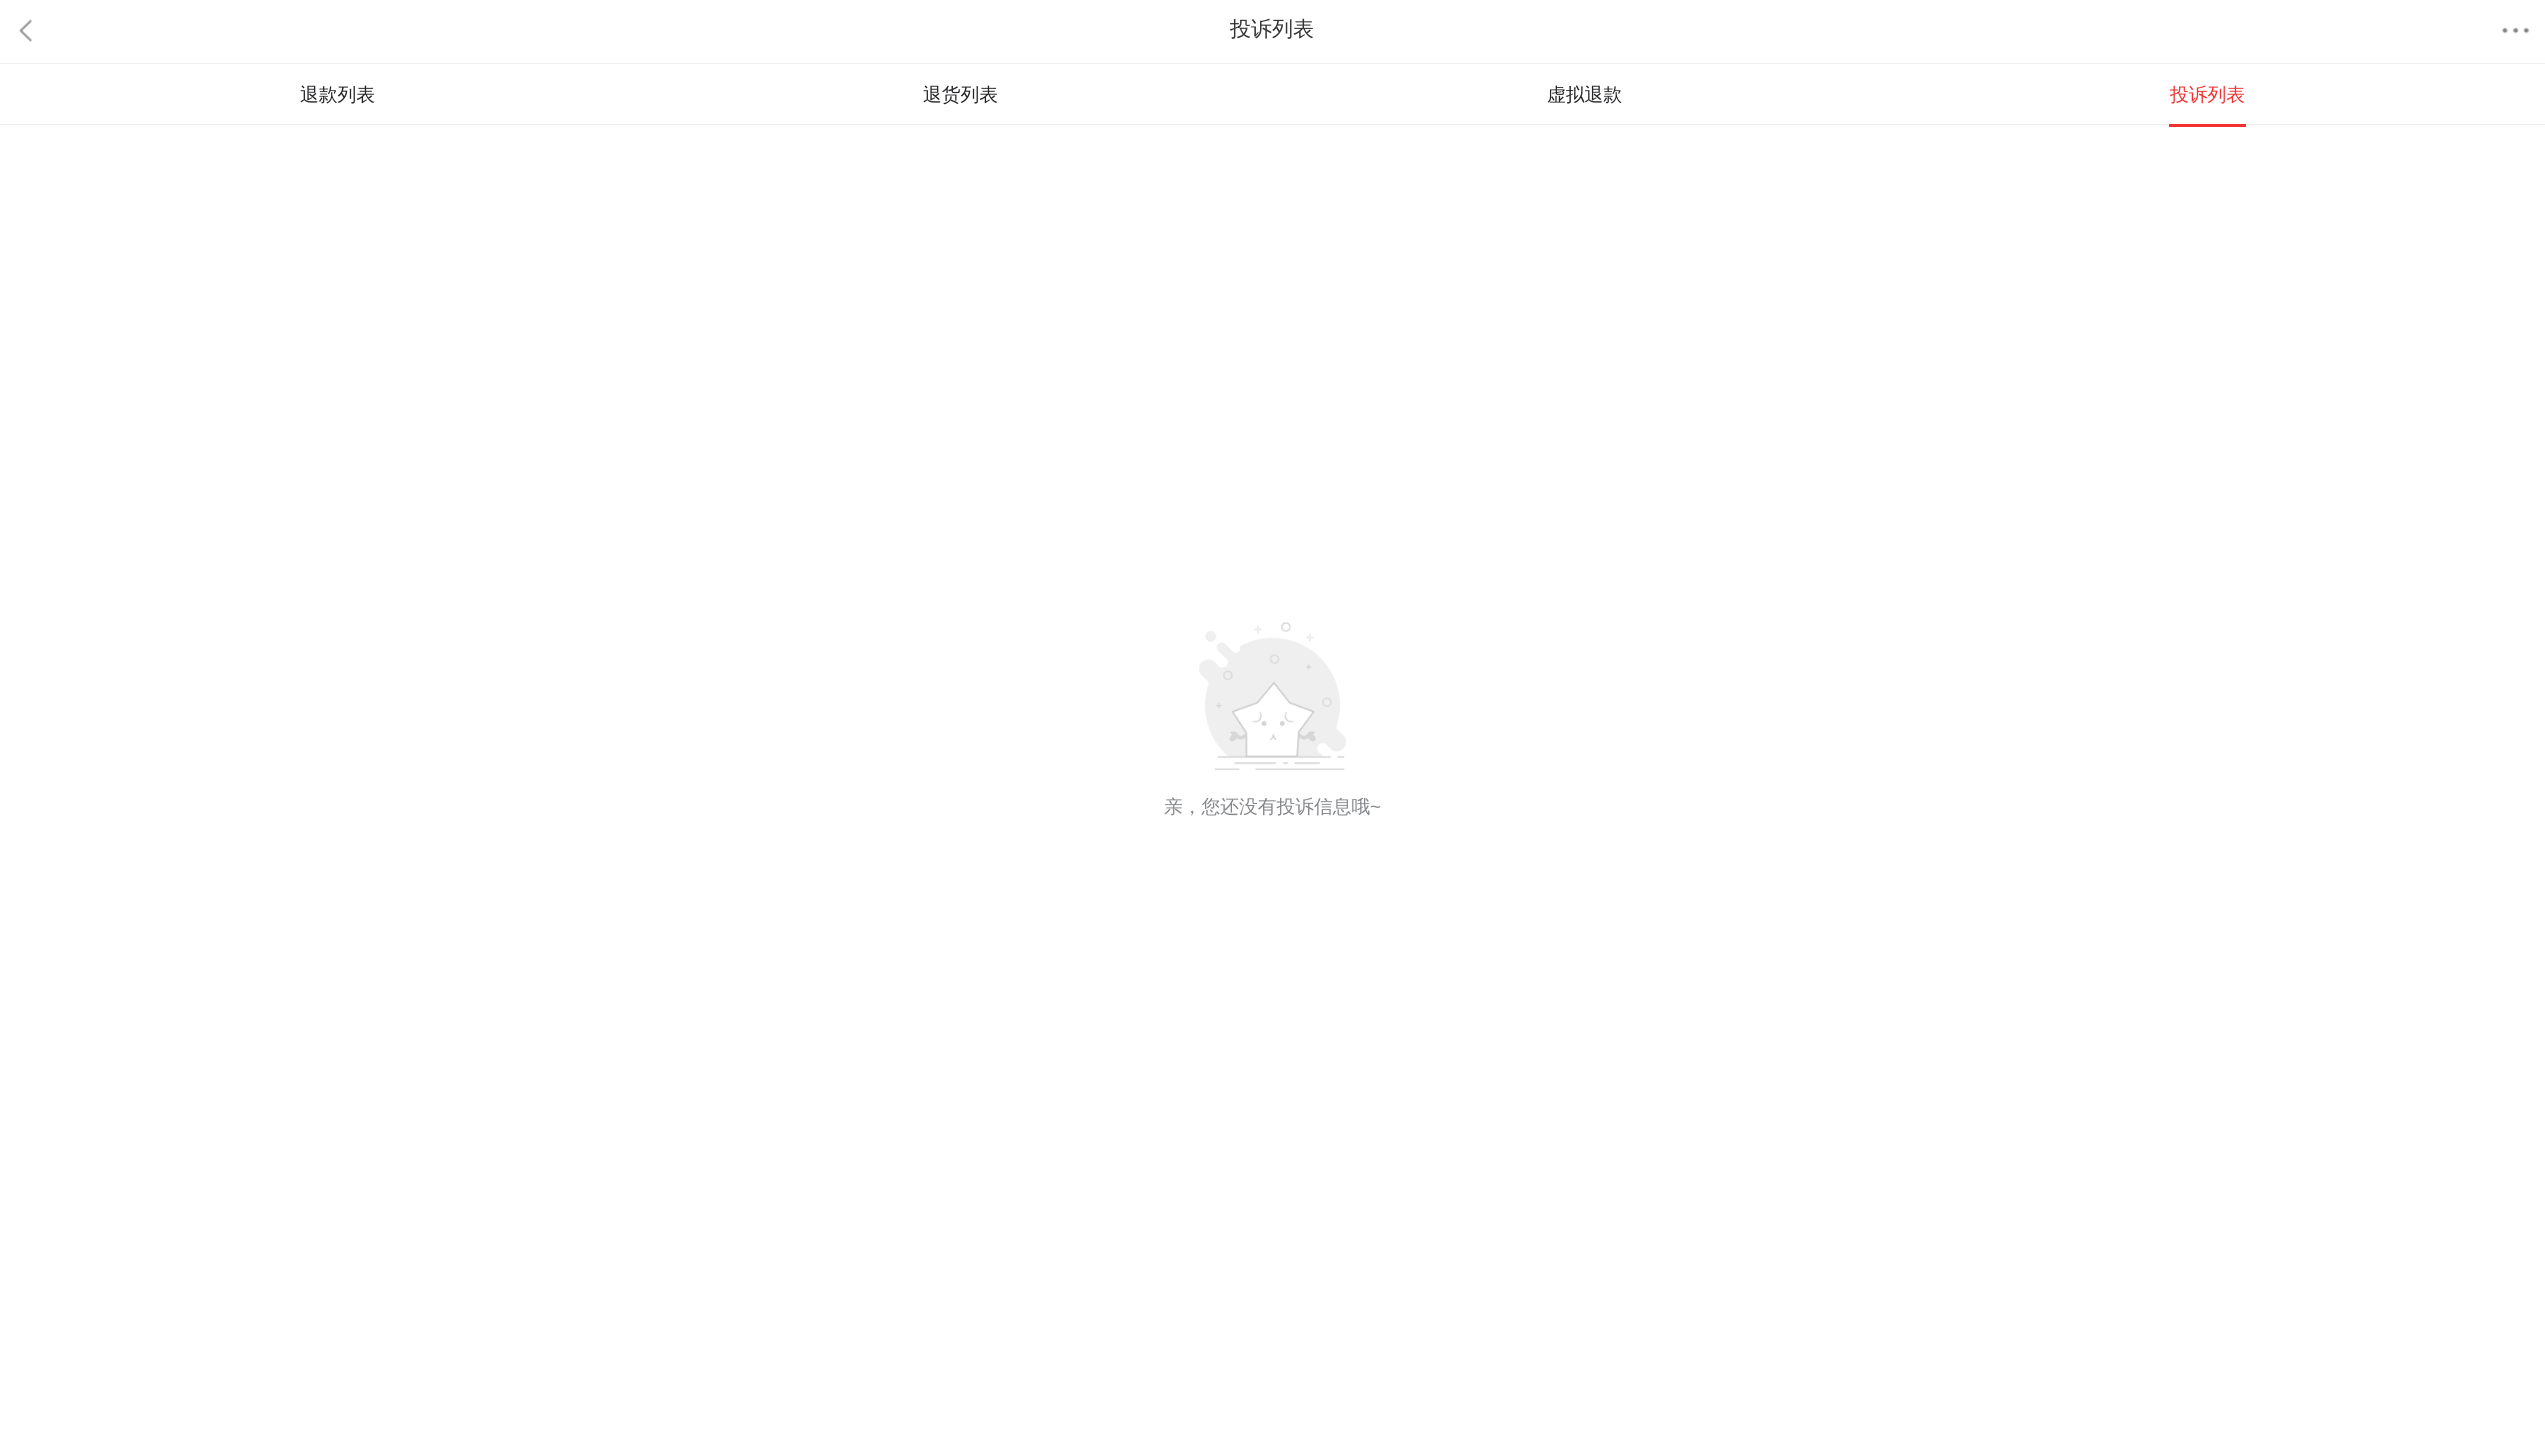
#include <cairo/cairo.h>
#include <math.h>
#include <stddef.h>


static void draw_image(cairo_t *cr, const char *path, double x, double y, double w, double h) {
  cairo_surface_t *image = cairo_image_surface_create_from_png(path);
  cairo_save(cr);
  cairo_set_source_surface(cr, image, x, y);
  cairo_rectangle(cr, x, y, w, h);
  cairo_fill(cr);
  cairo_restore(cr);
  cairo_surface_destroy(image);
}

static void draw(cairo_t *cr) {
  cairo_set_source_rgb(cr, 1, 1, 1);
  cairo_paint(cr);
  cairo_set_source_rgb(cr, 238 / 255.0, 238 / 255.0, 238 / 255.0);
  cairo_rectangle(cr, 0, 63, 2545, 1);
  cairo_fill(cr);
  draw_image(cr, "images/1.png", 19, 19, 13, 23);
  draw_image(cr, "images/2.png", 2502, 27, 28, 7);
  cairo_rectangle(cr, 0, 124, 2545, 1);
  cairo_fill(cr);
  cairo_set_source_rgb(cr, 242 / 255.0, 48 / 255.0, 48 / 255.0);
  cairo_rectangle(cr, 2169, 124, 77, 3);
  cairo_fill(cr);
  draw_image(cr, "images/3.png", 1199, 622, 148, 149);
  cairo_select_font_face(cr, "WenQuanYi Zen Hei Medium", CAIRO_FONT_SLANT_NORMAL, CAIRO_FONT_WEIGHT_NORMAL);
  cairo_set_font_size(cr, 21);
  cairo_set_source_rgb(cr, 51 / 255.0, 51 / 255.0, 51 / 255.0);
  cairo_move_to(cr, 1230, 36);
  cairo_show_text(cr, "投诉列表");
  cairo_set_font_size(cr, 18.75);
  cairo_set_source_rgb(cr, 35 / 255.0, 35 / 255.0, 38 / 255.0);
  cairo_move_to(cr, 300, 101);
  cairo_show_text(cr, "退款列表");
  cairo_move_to(cr, 923, 101);
  cairo_show_text(cr, "退货列表");
  cairo_move_to(cr, 1547, 101);
  cairo_show_text(cr, "虚拟退款");
  cairo_set_source_rgb(cr, 242 / 255.0, 48 / 255.0, 48 / 255.0);
  cairo_move_to(cr, 2170, 101);
  cairo_show_text(cr, "投诉列表");
  cairo_set_source_rgb(cr, 132 / 255.0, 134 / 255.0, 137 / 255.0);
  cairo_move_to(cr, 1164, 813);
  cairo_show_text(cr, "亲，您还没有投诉信息哦");
  cairo_select_font_face(cr, "Liberation Sans", CAIRO_FONT_SLANT_NORMAL, CAIRO_FONT_WEIGHT_NORMAL);
  cairo_move_to(cr, 1370, 813);
  cairo_show_text(cr, "~");
}

int main(void) {
  cairo_surface_t *surface = cairo_image_surface_create(CAIRO_FORMAT_RGB24, 2545, 1430);
  cairo_t *cr = cairo_create(surface);
  cairo_font_options_t *options = cairo_font_options_create();
  cairo_font_options_set_hint_metrics(options, CAIRO_HINT_METRICS_OFF);
  cairo_font_options_set_hint_style(options, CAIRO_HINT_STYLE_NONE);
  cairo_set_font_options(cr, options);
  cairo_set_miter_limit(cr, 4);
  draw(cr);
  cairo_surface_write_to_png(surface, "out.png");
  cairo_font_options_destroy(options);
  cairo_destroy(cr);
  cairo_surface_destroy(surface);
  return 0;
}
